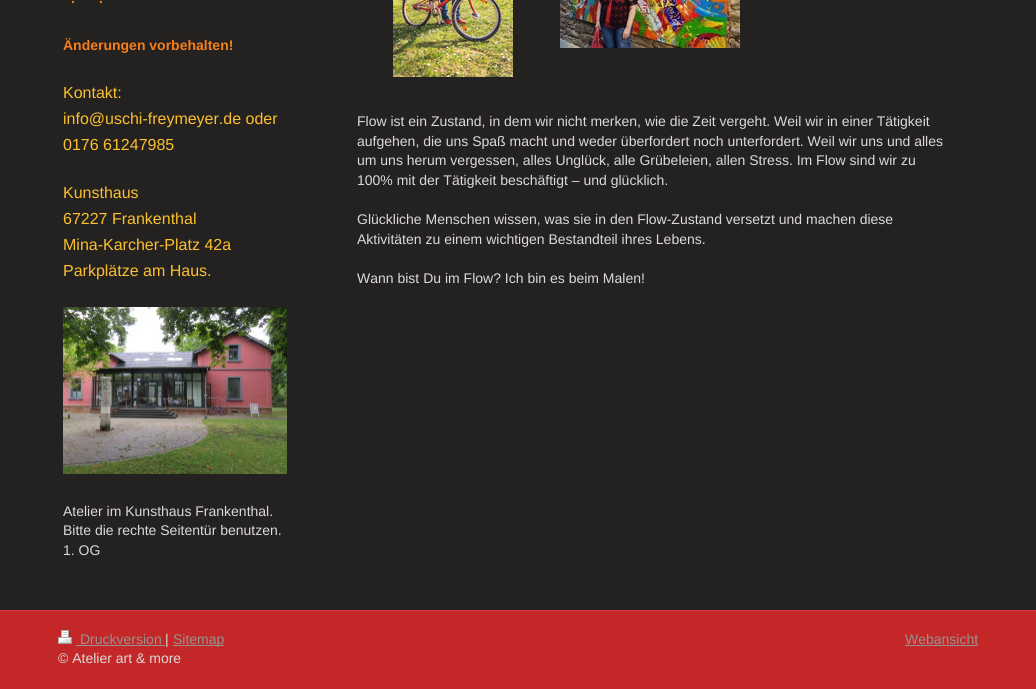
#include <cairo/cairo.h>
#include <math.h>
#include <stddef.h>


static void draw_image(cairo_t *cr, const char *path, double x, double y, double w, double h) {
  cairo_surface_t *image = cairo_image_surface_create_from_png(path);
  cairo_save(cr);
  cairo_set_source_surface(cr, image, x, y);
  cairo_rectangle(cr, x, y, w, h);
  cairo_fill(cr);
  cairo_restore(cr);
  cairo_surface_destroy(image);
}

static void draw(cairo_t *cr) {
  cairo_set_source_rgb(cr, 36 / 255.0, 33 / 255.0, 33 / 255.0);
  cairo_paint(cr);
  draw_image(cr, "images/1.png", 63, 307, 224, 167);
  draw_image(cr, "images/2.png", 393, 0, 120, 77);
  draw_image(cr, "images/3.png", 560, 0, 180, 48);
  cairo_set_source_rgb(cr, 195 / 255.0, 39 / 255.0, 39 / 255.0);
  cairo_rectangle(cr, 0, 611, 1036, 78);
  cairo_fill(cr);
  cairo_set_source_rgb(cr, 214 / 255.0, 57 / 255.0, 57 / 255.0);
  cairo_rectangle(cr, 0, 610, 1036, 1);
  cairo_fill(cr);
  draw_image(cr, "images/4.png", 58, 630, 14, 14);
  cairo_set_source_rgb(cr, 153 / 255.0, 145 / 255.0, 145 / 255.0);
  cairo_rectangle(cr, 76, 645, 89, 1);
  cairo_fill(cr);
  cairo_rectangle(cr, 173, 645, 51, 1);
  cairo_fill(cr);
  cairo_rectangle(cr, 905, 645, 73, 1);
  cairo_fill(cr);
  cairo_select_font_face(cr, "Liberation Sans", CAIRO_FONT_SLANT_NORMAL, CAIRO_FONT_WEIGHT_BOLD);
  cairo_set_font_size(cr, 14);
  cairo_set_source_rgb(cr, 245 / 255.0, 127 / 255.0, 24 / 255.0);
  cairo_move_to(cr, 71, 3);
  cairo_show_text(cr, ".");
  cairo_move_to(cr, 99, 3);
  cairo_show_text(cr, ".");
  cairo_move_to(cr, 63, 50);
  cairo_show_text(cr, "Änderungen vorbehalten!");
  cairo_select_font_face(cr, "Liberation Sans", CAIRO_FONT_SLANT_NORMAL, CAIRO_FONT_WEIGHT_NORMAL);
  cairo_set_font_size(cr, 16);
  cairo_set_source_rgb(cr, 251 / 255.0, 192 / 255.0, 46 / 255.0);
  cairo_move_to(cr, 63, 98);
  cairo_show_text(cr, "Kontakt:");
  cairo_move_to(cr, 63, 124);
  cairo_show_text(cr, "info@uschi-freymeyer.de oder");
  cairo_move_to(cr, 63, 150);
  cairo_show_text(cr, "0176 61247985");
  cairo_move_to(cr, 63, 198);
  cairo_show_text(cr, "Kunsthaus");
  cairo_move_to(cr, 63, 224);
  cairo_show_text(cr, "67227 Frankenthal");
  cairo_move_to(cr, 63, 250);
  cairo_show_text(cr, "Mina-Karcher-Platz 42a");
  cairo_move_to(cr, 63, 276);
  cairo_show_text(cr, "Parkplätze am Haus.");
  cairo_set_font_size(cr, 14);
  cairo_set_source_rgb(cr, 219 / 255.0, 217 / 255.0, 217 / 255.0);
  cairo_move_to(cr, 63, 516);
  cairo_show_text(cr, "Atelier im Kunsthaus Frankenthal.");
  cairo_move_to(cr, 63, 535);
  cairo_show_text(cr, "Bitte die rechte Seitentür benutzen.");
  cairo_move_to(cr, 63, 555);
  cairo_show_text(cr, "1. OG");
  cairo_move_to(cr, 357, 126);
  cairo_show_text(cr, "Flow ist ein Zustand, in dem wir nicht merken, wie die Zeit vergeht. Weil wir in einer Tätigkeit");
  cairo_move_to(cr, 357, 146);
  cairo_show_text(cr, "aufgehen, die uns Spaß macht und weder überfordert noch unterfordert. Weil wir uns und alles");
  cairo_move_to(cr, 357, 165);
  cairo_show_text(cr, "um uns herum vergessen, alles Unglück, alle Grübeleien, allen Stress. Im Flow sind wir zu");
  cairo_move_to(cr, 357, 185);
  cairo_show_text(cr, "100% mit der Tätigkeit beschäftigt – und glücklich.");
  cairo_move_to(cr, 357, 224);
  cairo_show_text(cr, "Glückliche Menschen wissen, was sie in den Flow-Zustand versetzt und machen diese");
  cairo_move_to(cr, 357, 244);
  cairo_show_text(cr, "Aktivitäten zu einem wichtigen Bestandteil ihres Lebens.");
  cairo_move_to(cr, 357, 283);
  cairo_show_text(cr, "Wann bist Du im Flow? Ich bin es beim Malen!");
  cairo_set_source_rgb(cr, 153 / 255.0, 145 / 255.0, 145 / 255.0);
  cairo_move_to(cr, 80, 644);
  cairo_show_text(cr, "Druckversion");
  cairo_set_source_rgb(cr, 219 / 255.0, 217 / 255.0, 217 / 255.0);
  cairo_move_to(cr, 165, 644);
  cairo_show_text(cr, "|");
  cairo_set_source_rgb(cr, 153 / 255.0, 145 / 255.0, 145 / 255.0);
  cairo_move_to(cr, 173, 644);
  cairo_show_text(cr, "Sitemap");
  cairo_set_source_rgb(cr, 219 / 255.0, 217 / 255.0, 217 / 255.0);
  cairo_move_to(cr, 58, 663);
  cairo_show_text(cr, "© Atelier art & more");
  cairo_set_source_rgb(cr, 153 / 255.0, 145 / 255.0, 145 / 255.0);
  cairo_move_to(cr, 905, 644);
  cairo_show_text(cr, "Webansicht");
}

int main(void) {
  cairo_surface_t *surface = cairo_image_surface_create(CAIRO_FORMAT_RGB24, 1036, 689);
  cairo_t *cr = cairo_create(surface);
  cairo_font_options_t *options = cairo_font_options_create();
  cairo_font_options_set_hint_metrics(options, CAIRO_HINT_METRICS_OFF);
  cairo_font_options_set_hint_style(options, CAIRO_HINT_STYLE_NONE);
  cairo_set_font_options(cr, options);
  cairo_set_miter_limit(cr, 4);
  draw(cr);
  cairo_surface_write_to_png(surface, "out.png");
  cairo_font_options_destroy(options);
  cairo_destroy(cr);
  cairo_surface_destroy(surface);
  return 0;
}
